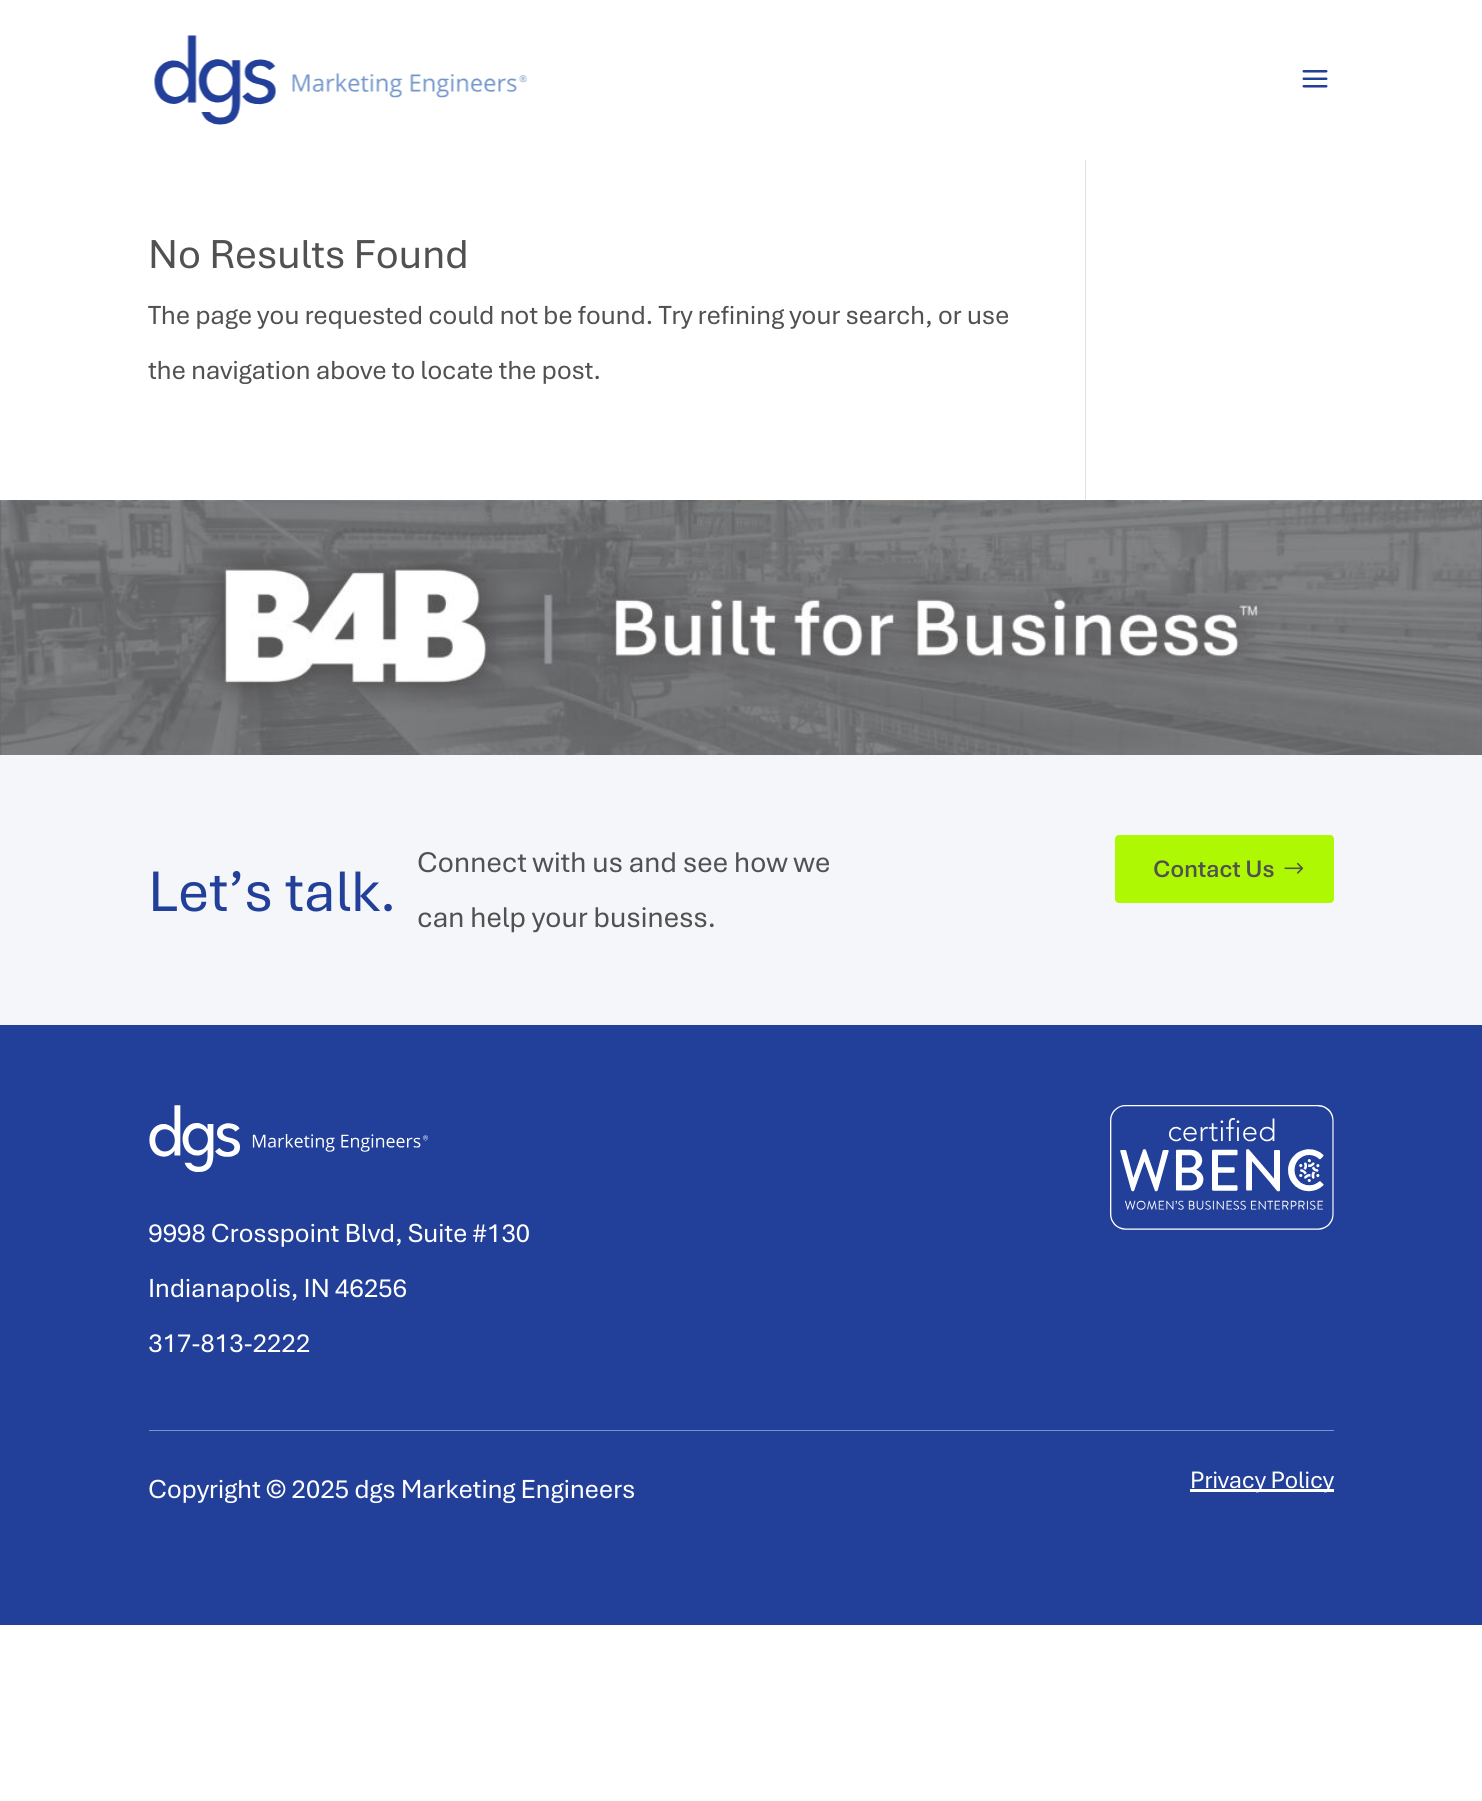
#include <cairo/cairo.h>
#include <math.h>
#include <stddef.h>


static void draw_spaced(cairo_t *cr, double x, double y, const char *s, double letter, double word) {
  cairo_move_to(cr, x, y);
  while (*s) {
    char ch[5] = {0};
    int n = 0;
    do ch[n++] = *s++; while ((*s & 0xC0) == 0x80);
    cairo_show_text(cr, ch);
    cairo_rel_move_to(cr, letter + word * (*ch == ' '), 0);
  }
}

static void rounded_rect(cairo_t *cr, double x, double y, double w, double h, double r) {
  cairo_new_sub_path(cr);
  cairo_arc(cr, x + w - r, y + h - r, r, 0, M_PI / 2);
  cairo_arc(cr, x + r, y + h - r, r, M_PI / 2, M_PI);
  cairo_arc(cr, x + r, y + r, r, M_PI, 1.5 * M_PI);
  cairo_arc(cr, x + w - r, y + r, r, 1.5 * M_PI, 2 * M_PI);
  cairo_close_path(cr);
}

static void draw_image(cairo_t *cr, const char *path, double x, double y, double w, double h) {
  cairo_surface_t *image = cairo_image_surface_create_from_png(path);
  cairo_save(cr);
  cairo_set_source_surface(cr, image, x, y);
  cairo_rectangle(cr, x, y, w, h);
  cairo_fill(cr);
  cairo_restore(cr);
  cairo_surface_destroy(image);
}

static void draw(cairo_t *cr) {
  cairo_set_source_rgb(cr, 1, 1, 1);
  cairo_paint(cr);
  cairo_set_source_rgb(cr, 226 / 255.0, 226 / 255.0, 226 / 255.0);
  cairo_rectangle(cr, 1085, 159, 1, 341);
  cairo_fill(cr);
  cairo_set_source_rgb(cr, 1, 1, 1);
  cairo_rectangle(cr, 1085, 159, 1, 1);
  cairo_fill(cr);
  draw_image(cr, "images/1.png", 154, 35, 374, 90);
  draw_image(cr, "images/2.png", 1302, 70, 26, 18);
  draw_image(cr, "images/3.png", 0, 500, 1482, 255);
  cairo_set_source_rgb(cr, 245 / 255.0, 246 / 255.0, 250 / 255.0);
  cairo_rectangle(cr, 0, 755, 1482, 270);
  cairo_fill(cr);
  cairo_set_source_rgb(cr, 173 / 255.0, 248 / 255.0, 2 / 255.0);
  rounded_rect(cr, 1115, 835, 219, 68, 4);
  cairo_fill(cr);
  draw_image(cr, "images/4.png", 1284, 862, 20, 12);
  cairo_set_source_rgb(cr, 34 / 255.0, 63 / 255.0, 153 / 255.0);
  cairo_rectangle(cr, 0, 1025, 1482, 600);
  cairo_fill(cr);
  draw_image(cr, "images/5.png", 1110, 1105, 224, 125);
  draw_image(cr, "images/6.png", 149, 1105, 280, 67);
  cairo_set_source_rgb(cr, 115 / 255.0, 150 / 255.0, 202 / 255.0);
  cairo_rectangle(cr, 149, 1430, 1185, 1);
  cairo_fill(cr);
  cairo_set_source_rgb(cr, 1, 1, 1);
  cairo_rectangle(cr, 1190, 1489, 144, 3);
  cairo_fill(cr);
  cairo_select_font_face(cr, "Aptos", CAIRO_FONT_SLANT_NORMAL, CAIRO_FONT_WEIGHT_NORMAL);
  cairo_set_font_size(cr, 42.5);
  cairo_set_source_rgb(cr, 81 / 255.0, 81 / 255.0, 81 / 255.0);
  draw_spaced(cr, 148, 268, "No Results Found", -0.3, 0);
  cairo_set_font_size(cr, 27.5);
  draw_spaced(cr, 148, 324, "The page you requested could not be found. Try refining your search, or use", -0.3, 0);
  draw_spaced(cr, 148, 379, "the navigation above to locate the post.", -0.3, 0);
  cairo_set_font_size(cr, 60);
  cairo_set_source_rgb(cr, 34 / 255.0, 63 / 255.0, 153 / 255.0);
  draw_spaced(cr, 148, 911, "Let’s talk.", -0.3, 0);
  cairo_set_font_size(cr, 30);
  cairo_set_source_rgb(cr, 81 / 255.0, 81 / 255.0, 81 / 255.0);
  draw_spaced(cr, 417, 872, "Connect with us and see how we", -0.3, 0);
  draw_spaced(cr, 417, 927, "can help your business.", -0.3, 0);
  cairo_select_font_face(cr, "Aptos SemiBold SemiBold", CAIRO_FONT_SLANT_NORMAL, CAIRO_FONT_WEIGHT_NORMAL);
  cairo_set_font_size(cr, 25);
  draw_spaced(cr, 1153, 877, "Contact Us", -0.3, 0);
  cairo_select_font_face(cr, "Aptos", CAIRO_FONT_SLANT_NORMAL, CAIRO_FONT_WEIGHT_NORMAL);
  cairo_set_font_size(cr, 27.5);
  cairo_set_source_rgb(cr, 1, 1, 1);
  draw_spaced(cr, 148, 1242, "9998 Crosspoint Blvd, Suite #130", -0.3, 0);
  draw_spaced(cr, 148, 1297, "Indianapolis, IN 46256", -0.3, 0);
  draw_spaced(cr, 148, 1352, "317-813-2222", -0.3, 0);
  draw_spaced(cr, 148, 1498, "Copyright © 2025 dgs Marketing Engineers", -0.3, 0);
  cairo_set_font_size(cr, 25);
  draw_spaced(cr, 1190, 1488, "Privacy Policy", -0.3, 0);
}

int main(void) {
  cairo_surface_t *surface = cairo_image_surface_create(CAIRO_FORMAT_RGB24, 1482, 1801);
  cairo_t *cr = cairo_create(surface);
  cairo_font_options_t *options = cairo_font_options_create();
  cairo_font_options_set_hint_metrics(options, CAIRO_HINT_METRICS_OFF);
  cairo_font_options_set_hint_style(options, CAIRO_HINT_STYLE_NONE);
  cairo_set_font_options(cr, options);
  cairo_set_miter_limit(cr, 4);
  draw(cr);
  cairo_surface_write_to_png(surface, "out.png");
  cairo_font_options_destroy(options);
  cairo_destroy(cr);
  cairo_surface_destroy(surface);
  return 0;
}
